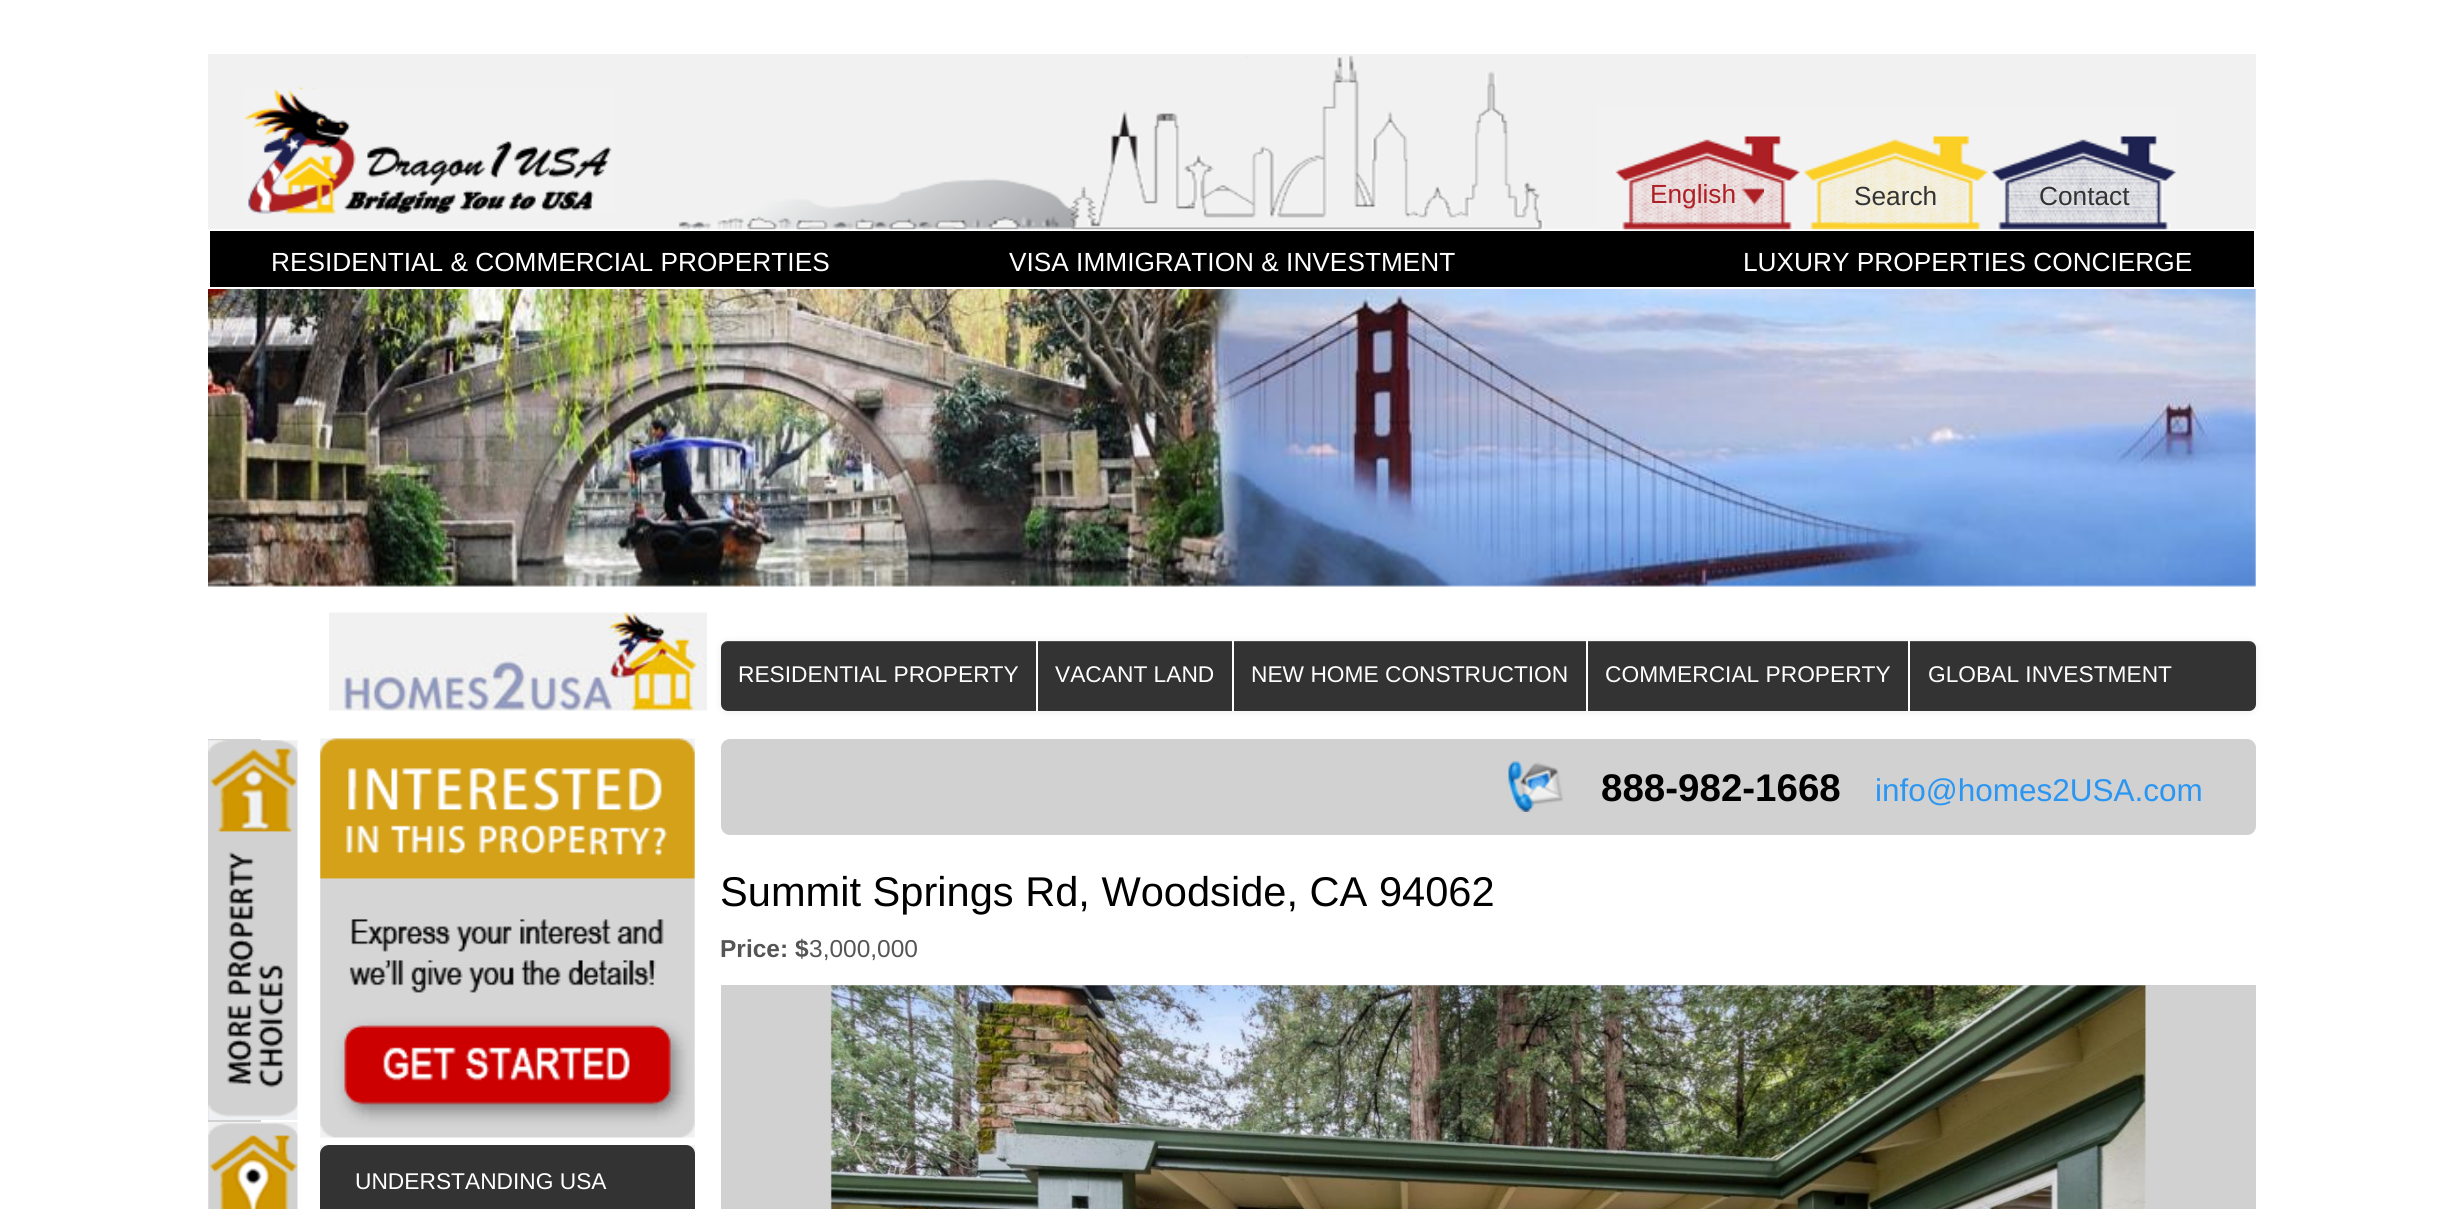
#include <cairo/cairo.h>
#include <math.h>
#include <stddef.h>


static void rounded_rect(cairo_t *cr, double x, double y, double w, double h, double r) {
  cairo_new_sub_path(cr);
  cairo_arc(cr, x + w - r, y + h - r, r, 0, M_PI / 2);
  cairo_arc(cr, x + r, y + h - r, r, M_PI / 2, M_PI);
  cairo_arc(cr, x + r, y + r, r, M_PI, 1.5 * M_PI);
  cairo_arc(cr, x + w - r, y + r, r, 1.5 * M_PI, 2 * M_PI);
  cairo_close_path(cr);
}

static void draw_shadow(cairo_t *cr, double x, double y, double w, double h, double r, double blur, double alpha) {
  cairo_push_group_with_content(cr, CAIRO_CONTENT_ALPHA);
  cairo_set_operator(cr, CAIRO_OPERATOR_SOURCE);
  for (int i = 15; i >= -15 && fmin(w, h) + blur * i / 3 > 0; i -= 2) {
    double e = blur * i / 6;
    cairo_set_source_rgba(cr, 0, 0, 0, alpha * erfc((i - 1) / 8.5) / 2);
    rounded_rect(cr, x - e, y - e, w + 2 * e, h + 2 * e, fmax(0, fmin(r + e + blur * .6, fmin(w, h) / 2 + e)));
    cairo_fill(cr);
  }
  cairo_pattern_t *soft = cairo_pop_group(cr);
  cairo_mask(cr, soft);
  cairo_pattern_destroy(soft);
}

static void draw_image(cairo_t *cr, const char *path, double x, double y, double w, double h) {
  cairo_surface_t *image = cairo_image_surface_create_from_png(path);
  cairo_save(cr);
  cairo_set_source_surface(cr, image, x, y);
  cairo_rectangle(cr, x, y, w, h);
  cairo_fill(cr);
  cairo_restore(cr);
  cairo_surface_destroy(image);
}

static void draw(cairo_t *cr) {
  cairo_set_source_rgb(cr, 1, 1, 1);
  cairo_paint(cr);
  cairo_set_source_rgb(cr, 241 / 255.0, 241 / 255.0, 241 / 255.0);
  cairo_rectangle(cr, 208, 54, 2048, 175);
  cairo_fill(cr);
  draw_image(cr, "images/1.png", 269, 55, 1908, 175);
  draw_image(cr, "images/2.png", 244, 89, 370, 125);
  draw_image(cr, "images/3.png", 1742, 188, 22, 18);
  cairo_set_source_rgb(cr, 0, 0, 0);
  cairo_rectangle(cr, 210, 231, 2044, 56);
  cairo_fill(cr);
  draw_image(cr, "images/4.png", 208, 289, 2048, 298);
  draw_image(cr, "images/5.png", 329, 612, 378, 99);
  cairo_set_source_rgb(cr, 0, 0, 0);
  draw_shadow(cr, 721, 642, 1535, 70, 7, 4.5, 0.07);
  cairo_set_source_rgb(cr, 51 / 255.0, 51 / 255.0, 51 / 255.0);
  rounded_rect(cr, 721, 641, 1535, 70, 7);
  cairo_fill(cr);
  cairo_set_source_rgba(cr, 1, 1, 1, 0.15);
  cairo_new_path(cr);
  cairo_move_to(cr, 728, 642);
  cairo_line_to(cr, 2249, 642);
  cairo_curve_to(cr, 2253, 642, 2256, 645, 2256, 649);
  cairo_curve_to(cr, 2256, 645, 2254, 641, 2249, 641);
  cairo_line_to(cr, 728, 641);
  cairo_curve_to(cr, 723, 641, 721, 645, 721, 649);
  cairo_curve_to(cr, 721, 645, 724, 642, 728, 642);
  cairo_close_path(cr);
  cairo_fill(cr);
  cairo_set_source_rgb(cr, 1, 1, 1);
  cairo_rectangle(cr, 1036, 641, 2, 70);
  cairo_fill(cr);
  cairo_rectangle(cr, 1232, 641, 2, 70);
  cairo_fill(cr);
  cairo_rectangle(cr, 1586, 641, 2, 70);
  cairo_fill(cr);
  cairo_rectangle(cr, 1908, 641, 2, 70);
  cairo_fill(cr);
  cairo_set_source_rgb(cr, 209 / 255.0, 209 / 255.0, 209 / 255.0);
  rounded_rect(cr, 721, 739, 1535, 96, 9);
  cairo_fill(cr);
  draw_image(cr, "images/6.png", 1503, 760, 60, 52);
  cairo_rectangle(cr, 721, 985, 1535, 224);
  cairo_fill(cr);
  draw_image(cr, "images/7.png", 830, 985, 1316, 224);
  cairo_rectangle(cr, 208, 739, 53, 383);
  cairo_fill(cr);
  draw_image(cr, "images/8.png", 208, 740, 90, 380);
  draw_image(cr, "images/9.png", 208, 1122, 90, 87);
  draw_image(cr, "images/10.png", 320, 738, 375, 400);
  cairo_set_source_rgb(cr, 241 / 255.0, 241 / 255.0, 241 / 255.0);
  cairo_rectangle(cr, 320, 1145, 375, 9);
  cairo_fill(cr);
  cairo_set_source_rgb(cr, 51 / 255.0, 51 / 255.0, 51 / 255.0);
  rounded_rect(cr, 320, 1145, 375, 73, 9);
  cairo_fill(cr);
  cairo_select_font_face(cr, "Liberation Sans", CAIRO_FONT_SLANT_NORMAL, CAIRO_FONT_WEIGHT_NORMAL);
  cairo_set_font_size(cr, 26.25);
  cairo_set_source_rgb(cr, 172 / 255.0, 31 / 255.0, 36 / 255.0);
  cairo_move_to(cr, 1650, 203);
  cairo_show_text(cr, "English");
  cairo_set_source_rgb(cr, 51 / 255.0, 51 / 255.0, 51 / 255.0);
  cairo_move_to(cr, 1854, 205);
  cairo_show_text(cr, "Search");
  cairo_move_to(cr, 2039, 205);
  cairo_show_text(cr, "Contact");
  cairo_set_source_rgb(cr, 1, 1, 1);
  cairo_move_to(cr, 271, 271);
  cairo_show_text(cr, "RESIDENTIAL & COMMERCIAL PROPERTIES");
  cairo_move_to(cr, 1009, 271);
  cairo_show_text(cr, "VISA IMMIGRATION & INVESTMENT");
  cairo_move_to(cr, 1743, 271);
  cairo_show_text(cr, "LUXURY PROPERTIES CONCIERGE");
  cairo_set_font_size(cr, 22.75);
  cairo_move_to(cr, 738, 682);
  cairo_show_text(cr, "RESIDENTIAL PROPERTY");
  cairo_move_to(cr, 1055, 682);
  cairo_show_text(cr, "VACANT LAND");
  cairo_move_to(cr, 1251, 682);
  cairo_show_text(cr, "NEW HOME CONSTRUCTION");
  cairo_move_to(cr, 1605, 682);
  cairo_show_text(cr, "COMMERCIAL PROPERTY");
  cairo_move_to(cr, 1928, 682);
  cairo_show_text(cr, "GLOBAL INVESTMENT");
  cairo_select_font_face(cr, "Liberation Sans", CAIRO_FONT_SLANT_NORMAL, CAIRO_FONT_WEIGHT_BOLD);
  cairo_set_font_size(cr, 38.5);
  cairo_set_source_rgb(cr, 0, 0, 0);
  cairo_move_to(cr, 1601, 801);
  cairo_show_text(cr, "888-982-1668");
  cairo_select_font_face(cr, "Liberation Sans", CAIRO_FONT_SLANT_NORMAL, CAIRO_FONT_WEIGHT_NORMAL);
  cairo_set_font_size(cr, 31.5);
  cairo_set_source_rgb(cr, 43 / 255.0, 150 / 255.0, 241 / 255.0);
  cairo_move_to(cr, 1875, 801);
  cairo_show_text(cr, "info@homes2USA.com");
  cairo_set_font_size(cr, 41.6);
  cairo_set_source_rgb(cr, 0, 0, 0);
  cairo_move_to(cr, 720, 906);
  cairo_show_text(cr, "Summit Springs Rd, Woodside, CA 94062");
  cairo_select_font_face(cr, "Liberation Sans", CAIRO_FONT_SLANT_NORMAL, CAIRO_FONT_WEIGHT_BOLD);
  cairo_set_font_size(cr, 24.5);
  cairo_set_source_rgb(cr, 85 / 255.0, 85 / 255.0, 85 / 255.0);
  cairo_move_to(cr, 720, 957);
  cairo_show_text(cr, "Price: $");
  cairo_select_font_face(cr, "Liberation Sans", CAIRO_FONT_SLANT_NORMAL, CAIRO_FONT_WEIGHT_NORMAL);
  cairo_move_to(cr, 809, 957);
  cairo_show_text(cr, "3,000,000");
  cairo_set_font_size(cr, 22.75);
  cairo_set_source_rgb(cr, 1, 1, 1);
  cairo_move_to(cr, 355, 1189);
  cairo_show_text(cr, "UNDERSTANDING USA");
}

int main(void) {
  cairo_surface_t *surface = cairo_image_surface_create(CAIRO_FORMAT_RGB24, 2463, 1209);
  cairo_t *cr = cairo_create(surface);
  cairo_font_options_t *options = cairo_font_options_create();
  cairo_font_options_set_hint_metrics(options, CAIRO_HINT_METRICS_OFF);
  cairo_font_options_set_hint_style(options, CAIRO_HINT_STYLE_NONE);
  cairo_set_font_options(cr, options);
  cairo_set_miter_limit(cr, 4);
  draw(cr);
  cairo_surface_write_to_png(surface, "out.png");
  cairo_font_options_destroy(options);
  cairo_destroy(cr);
  cairo_surface_destroy(surface);
  return 0;
}
